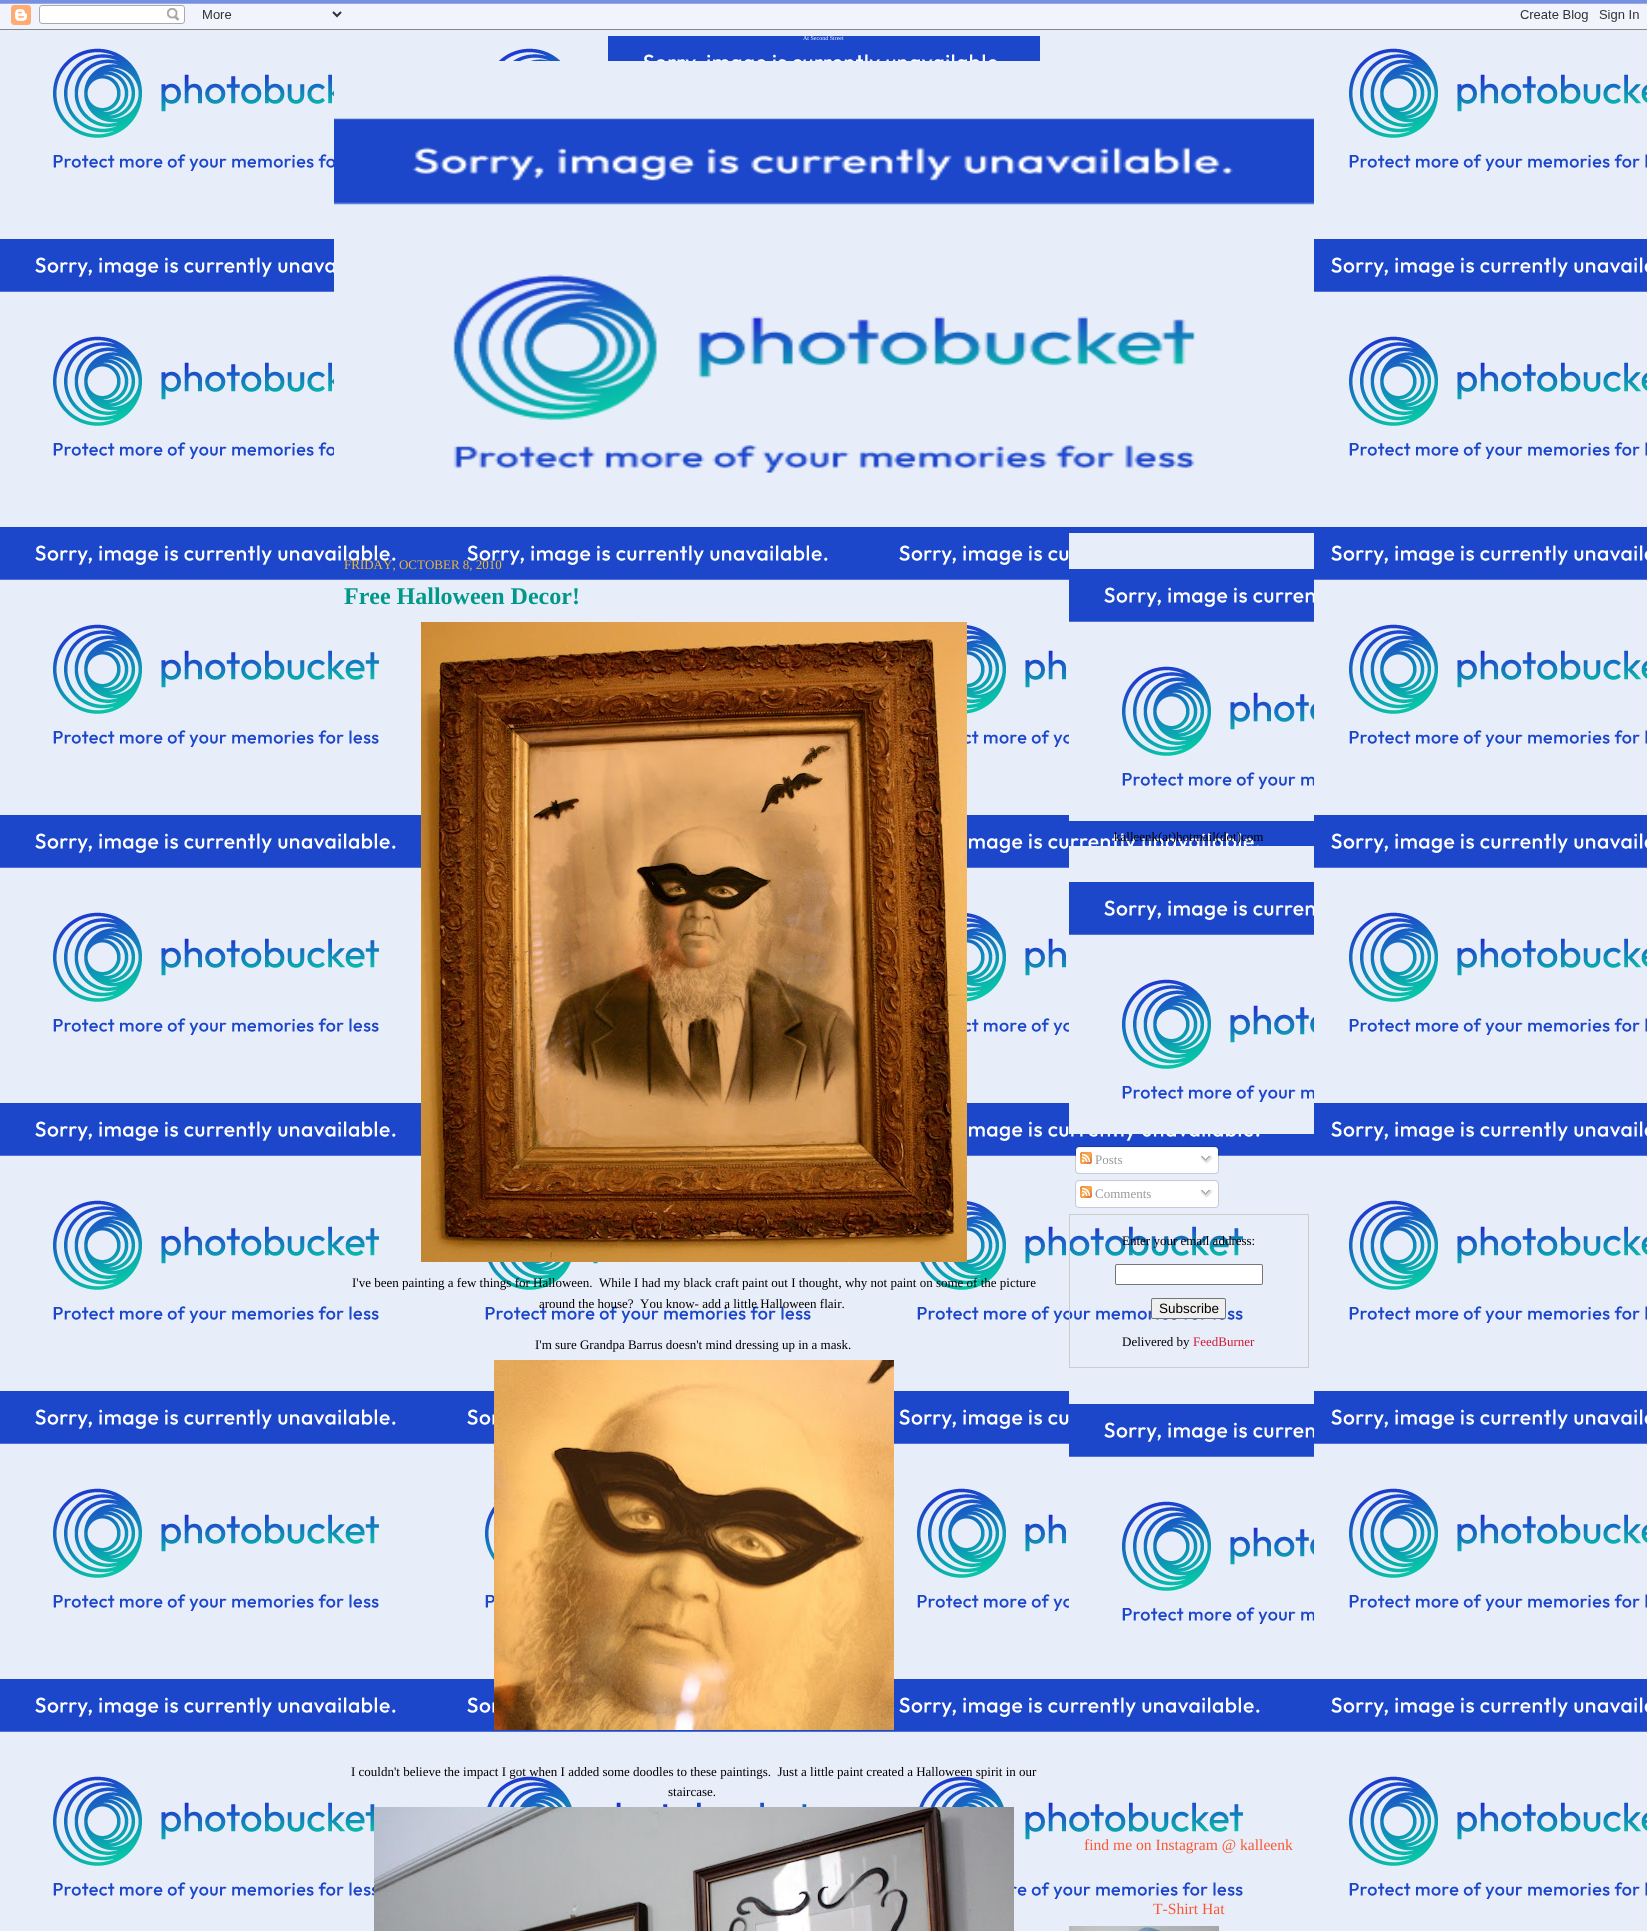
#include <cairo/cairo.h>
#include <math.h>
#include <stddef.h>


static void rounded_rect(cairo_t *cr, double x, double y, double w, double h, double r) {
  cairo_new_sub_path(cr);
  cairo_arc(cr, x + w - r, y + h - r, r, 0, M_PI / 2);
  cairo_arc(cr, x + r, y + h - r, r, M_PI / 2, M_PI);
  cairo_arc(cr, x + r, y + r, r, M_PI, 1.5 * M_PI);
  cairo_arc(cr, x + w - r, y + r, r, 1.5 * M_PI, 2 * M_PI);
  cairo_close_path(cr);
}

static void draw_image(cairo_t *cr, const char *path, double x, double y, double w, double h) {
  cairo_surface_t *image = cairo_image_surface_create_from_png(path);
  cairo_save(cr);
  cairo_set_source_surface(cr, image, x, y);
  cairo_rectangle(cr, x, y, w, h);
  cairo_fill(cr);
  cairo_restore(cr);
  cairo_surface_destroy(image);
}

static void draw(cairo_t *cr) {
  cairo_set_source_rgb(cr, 1, 1, 1);
  cairo_paint(cr);
  draw_image(cr, "images/1.png", 0, 0, 1647, 1931);
  draw_image(cr, "images/2.png", 0, 0, 1647, 30);
  draw_image(cr, "images/3.png", 608, 36, 432, 25);
  draw_image(cr, "images/4.png", 334, 61, 980, 412);
  draw_image(cr, "images/5.png", 421, 622, 546, 640);
  draw_image(cr, "images/6.png", 494, 1360, 400, 370);
  draw_image(cr, "images/7.png", 374, 1807, 640, 124);
  draw_image(cr, "images/8.png", 1069, 533, 245, 288);
  draw_image(cr, "images/8.png", 1069, 846, 245, 288);
  draw_image(cr, "images/9.png", 1075, 1146, 144, 25);
  draw_image(cr, "images/10.png", 1080, 1152, 12, 12);
  draw_image(cr, "images/11.png", 1200, 1155, 13, 9);
  draw_image(cr, "images/12.png", 1075, 1171, 144, 3);
  draw_image(cr, "images/13.png", 1075, 1180, 144, 25);
  draw_image(cr, "images/10.png", 1080, 1186, 12, 12);
  draw_image(cr, "images/11.png", 1200, 1189, 13, 9);
  draw_image(cr, "images/12.png", 1075, 1205, 144, 3);
  cairo_rectangle(cr, 1069.5, 1214.5, 239, 153);
  cairo_set_source_rgb(cr, 204 / 255.0, 204 / 255.0, 204 / 255.0);
  cairo_set_line_width(cr, 1);
  cairo_stroke(cr);
  cairo_set_source_rgb(cr, 1, 1, 1);
  rounded_rect(cr, 1115.5, 1264.5, 147, 20, 1.5);
  cairo_fill_preserve(cr);
  cairo_set_source_rgb(cr, 118 / 255.0, 118 / 255.0, 118 / 255.0);
  cairo_stroke(cr);
  cairo_set_source_rgb(cr, 239 / 255.0, 239 / 255.0, 239 / 255.0);
  rounded_rect(cr, 1151.5, 1298.5, 74, 20, 1.5);
  cairo_fill_preserve(cr);
  cairo_set_source_rgb(cr, 118 / 255.0, 118 / 255.0, 118 / 255.0);
  cairo_stroke(cr);
  draw_image(cr, "images/14.png", 1069, 1391, 245, 233);
  draw_image(cr, "images/15.png", 1069, 1926, 150, 5);
  cairo_select_font_face(cr, "Liberation Serif", CAIRO_FONT_SLANT_NORMAL, CAIRO_FONT_WEIGHT_NORMAL);
  cairo_set_font_size(cr, 6);
  cairo_set_source_rgb(cr, 1, 1, 1);
  cairo_move_to(cr, 803, 40);
  cairo_show_text(cr, "At Second Street");
  cairo_set_font_size(cr, 13);
  cairo_set_source_rgb(cr, 238 / 255.0, 185 / 255.0, 47 / 255.0);
  cairo_move_to(cr, 344, 569);
  cairo_show_text(cr, "FRIDAY, OCTOBER 8, 2010");
  cairo_select_font_face(cr, "Liberation Serif", CAIRO_FONT_SLANT_NORMAL, CAIRO_FONT_WEIGHT_BOLD);
  cairo_set_font_size(cr, 24);
  cairo_set_source_rgb(cr, 1 / 255.0, 152 / 255.0, 137 / 255.0);
  cairo_move_to(cr, 344, 604);
  cairo_show_text(cr, "Free Halloween Decor!");
  cairo_select_font_face(cr, "Liberation Serif", CAIRO_FONT_SLANT_NORMAL, CAIRO_FONT_WEIGHT_NORMAL);
  cairo_set_font_size(cr, 13);
  cairo_set_source_rgb(cr, 0, 0, 0);
  cairo_move_to(cr, 352, 1287);
  cairo_show_text(cr, "I've been painting a few things for Halloween.  While I had my black craft paint out I thought, why not paint on some of the picture");
  cairo_move_to(cr, 539, 1308);
  cairo_show_text(cr, "around the house?  You know- add a little Halloween flair.");
  cairo_move_to(cr, 535, 1349);
  cairo_show_text(cr, "I'm sure Grandpa Barrus doesn't mind dressing up in a mask.");
  cairo_move_to(cr, 351, 1776);
  cairo_show_text(cr, "I couldn't believe the impact I got when I added some doodles to these paintings.  Just a little paint created a Halloween spirit in our");
  cairo_move_to(cr, 668, 1796);
  cairo_show_text(cr, "staircase.");
  cairo_move_to(cr, 1114, 841);
  cairo_show_text(cr, "kalleenk(at)hotmail(dot)com");
  cairo_set_source_rgb(cr, 153 / 255.0, 153 / 255.0, 153 / 255.0);
  cairo_move_to(cr, 1095, 1164);
  cairo_show_text(cr, "Posts");
  cairo_move_to(cr, 1095, 1198);
  cairo_show_text(cr, "Comments");
  cairo_set_source_rgb(cr, 0, 0, 0);
  cairo_move_to(cr, 1122, 1245);
  cairo_show_text(cr, "Enter your email address:");
  cairo_select_font_face(cr, "Liberation Sans", CAIRO_FONT_SLANT_NORMAL, CAIRO_FONT_WEIGHT_NORMAL);
  cairo_set_font_size(cr, 13.5);
  cairo_move_to(cr, 1159, 1313);
  cairo_show_text(cr, "Subscribe");
  cairo_select_font_face(cr, "Liberation Serif", CAIRO_FONT_SLANT_NORMAL, CAIRO_FONT_WEIGHT_NORMAL);
  cairo_set_font_size(cr, 13);
  cairo_move_to(cr, 1122, 1346);
  cairo_show_text(cr, "Delivered by");
  cairo_set_source_rgb(cr, 207 / 255.0, 24 / 255.0, 52 / 255.0);
  cairo_move_to(cr, 1193, 1346);
  cairo_show_text(cr, "FeedBurner");
  cairo_set_font_size(cr, 15.6);
  cairo_set_source_rgb(cr, 248 / 255.0, 89 / 255.0, 49 / 255.0);
  cairo_move_to(cr, 1084, 1850);
  cairo_show_text(cr, "find me on Instagram @ kalleenk");
  cairo_move_to(cr, 1153, 1914);
  cairo_show_text(cr, "T-Shirt Hat");
}

int main(void) {
  cairo_surface_t *surface = cairo_image_surface_create(CAIRO_FORMAT_RGB24, 1647, 1931);
  cairo_t *cr = cairo_create(surface);
  cairo_font_options_t *options = cairo_font_options_create();
  cairo_font_options_set_hint_metrics(options, CAIRO_HINT_METRICS_OFF);
  cairo_font_options_set_hint_style(options, CAIRO_HINT_STYLE_NONE);
  cairo_set_font_options(cr, options);
  cairo_set_miter_limit(cr, 4);
  draw(cr);
  cairo_surface_write_to_png(surface, "out.png");
  cairo_font_options_destroy(options);
  cairo_destroy(cr);
  cairo_surface_destroy(surface);
  return 0;
}
